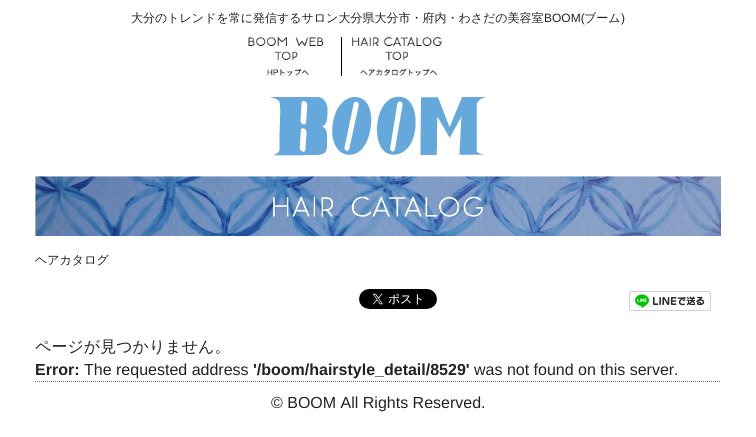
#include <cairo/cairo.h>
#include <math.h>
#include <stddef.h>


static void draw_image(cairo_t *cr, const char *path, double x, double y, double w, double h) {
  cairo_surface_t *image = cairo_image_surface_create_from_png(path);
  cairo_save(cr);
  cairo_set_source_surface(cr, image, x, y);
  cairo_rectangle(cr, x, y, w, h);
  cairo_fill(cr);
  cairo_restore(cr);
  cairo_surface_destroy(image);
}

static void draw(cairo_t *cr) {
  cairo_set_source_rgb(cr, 1, 1, 1);
  cairo_paint(cr);
  cairo_set_source_rgb(cr, 0, 0, 0);
  cairo_rectangle(cr, 341, 37, 1, 39);
  cairo_fill(cr);
  draw_image(cr, "images/1.png", 248, 37, 76, 39);
  draw_image(cr, "images/2.png", 352, 37, 90, 39);
  draw_image(cr, "images/3.png", 270, 96, 216, 60);
  draw_image(cr, "images/4.png", 35, 176, 686, 60);
  draw_image(cr, "images/5.png", 359, 289, 78, 20);
  draw_image(cr, "images/6.png", 629, 291, 82, 20);
  cairo_new_path(cr);
  cairo_move_to(cr, 35, 381.5);
  cairo_line_to(cr, 721, 381.5);
  cairo_set_source_rgb(cr, 118 / 255.0, 118 / 255.0, 118 / 255.0);
  cairo_set_line_width(cr, 1);
  cairo_set_dash(cr, (double[]){1, 1}, 2, 0);
  cairo_stroke(cr);
  cairo_select_font_face(cr, "WenQuanYi Zen Hei Medium", CAIRO_FONT_SLANT_NORMAL, CAIRO_FONT_WEIGHT_NORMAL);
  cairo_set_font_size(cr, 12);
  cairo_set_source_rgb(cr, 34 / 255.0, 34 / 255.0, 34 / 255.0);
  cairo_move_to(cr, 131, 22);
  cairo_show_text(cr, "大分のトレンドを常に発信するサロン大分県大分市・府内・わさだの美容室");
  cairo_select_font_face(cr, "Liberation Sans", CAIRO_FONT_SLANT_NORMAL, CAIRO_FONT_WEIGHT_NORMAL);
  cairo_move_to(cr, 544, 22);
  cairo_show_text(cr, "BOOM(");
  cairo_select_font_face(cr, "WenQuanYi Zen Hei Medium", CAIRO_FONT_SLANT_NORMAL, CAIRO_FONT_WEIGHT_NORMAL);
  cairo_move_to(cr, 584, 22);
  cairo_show_text(cr, "ブーム");
  cairo_select_font_face(cr, "Liberation Sans", CAIRO_FONT_SLANT_NORMAL, CAIRO_FONT_WEIGHT_NORMAL);
  cairo_move_to(cr, 621, 22);
  cairo_show_text(cr, ")");
  cairo_select_font_face(cr, "WenQuanYi Zen Hei Medium", CAIRO_FONT_SLANT_NORMAL, CAIRO_FONT_WEIGHT_NORMAL);
  cairo_set_source_rgb(cr, 35 / 255.0, 24 / 255.0, 21 / 255.0);
  cairo_move_to(cr, 35, 264);
  cairo_show_text(cr, "ヘアカタログ");
  cairo_set_font_size(cr, 16);
  cairo_set_source_rgb(cr, 34 / 255.0, 34 / 255.0, 34 / 255.0);
  cairo_move_to(cr, 35, 352);
  cairo_show_text(cr, "ページが見つかりません。");
  cairo_select_font_face(cr, "Liberation Sans", CAIRO_FONT_SLANT_NORMAL, CAIRO_FONT_WEIGHT_BOLD);
  cairo_move_to(cr, 35, 375);
  cairo_show_text(cr, "Error:");
  cairo_select_font_face(cr, "Liberation Sans", CAIRO_FONT_SLANT_NORMAL, CAIRO_FONT_WEIGHT_NORMAL);
  cairo_move_to(cr, 84, 375);
  cairo_show_text(cr, "The requested address");
  cairo_select_font_face(cr, "Liberation Sans", CAIRO_FONT_SLANT_NORMAL, CAIRO_FONT_WEIGHT_BOLD);
  cairo_move_to(cr, 253, 375);
  cairo_show_text(cr, "'/boom/hairstyle_detail/8529'");
  cairo_select_font_face(cr, "Liberation Sans", CAIRO_FONT_SLANT_NORMAL, CAIRO_FONT_WEIGHT_NORMAL);
  cairo_move_to(cr, 474, 375);
  cairo_show_text(cr, "was not found on this server.");
  cairo_move_to(cr, 271, 408);
  cairo_show_text(cr, "© BOOM All Rights Reserved.");
}

int main(void) {
  cairo_surface_t *surface = cairo_image_surface_create(CAIRO_FORMAT_RGB24, 756, 437);
  cairo_t *cr = cairo_create(surface);
  cairo_font_options_t *options = cairo_font_options_create();
  cairo_font_options_set_hint_metrics(options, CAIRO_HINT_METRICS_OFF);
  cairo_font_options_set_hint_style(options, CAIRO_HINT_STYLE_NONE);
  cairo_set_font_options(cr, options);
  cairo_set_miter_limit(cr, 4);
  draw(cr);
  cairo_surface_write_to_png(surface, "out.png");
  cairo_font_options_destroy(options);
  cairo_destroy(cr);
  cairo_surface_destroy(surface);
  return 0;
}
